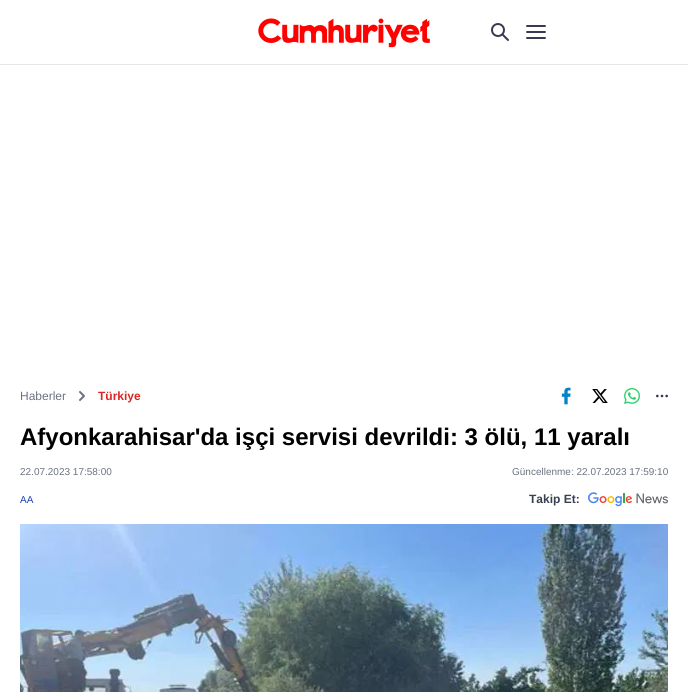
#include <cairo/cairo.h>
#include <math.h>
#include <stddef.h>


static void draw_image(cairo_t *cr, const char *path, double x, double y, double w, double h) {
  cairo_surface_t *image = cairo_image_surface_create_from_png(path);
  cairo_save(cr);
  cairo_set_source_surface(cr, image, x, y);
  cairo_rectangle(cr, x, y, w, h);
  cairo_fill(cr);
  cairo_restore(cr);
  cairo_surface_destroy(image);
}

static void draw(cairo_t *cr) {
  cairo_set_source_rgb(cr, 1, 1, 1);
  cairo_paint(cr);
  cairo_set_source_rgb(cr, 229 / 255.0, 229 / 255.0, 234 / 255.0);
  cairo_rectangle(cr, 0, 64, 688, 1);
  cairo_fill(cr);
  draw_image(cr, "images/1.png", 258, 18, 172, 30);
  draw_image(cr, "images/2.png", 491, 23, 18, 18);
  draw_image(cr, "images/3.png", 526, 25, 20, 14);
  cairo_new_path(cr);
  cairo_move_to(cr, 80, 400);
  cairo_line_to(cr, 84, 396);
  cairo_line_to(cr, 80, 392);
  cairo_set_source_rgb(cr, 107 / 255.0, 114 / 255.0, 128 / 255.0);
  cairo_set_line_cap(cr, CAIRO_LINE_CAP_ROUND);
  cairo_set_line_join(cr, CAIRO_LINE_JOIN_ROUND);
  cairo_stroke(cr);
  draw_image(cr, "images/4.png", 561, 387, 10, 18);
  draw_image(cr, "images/5.png", 592, 389, 16, 14);
  draw_image(cr, "images/6.png", 624, 388, 16, 16);
  draw_image(cr, "images/7.png", 656, 394, 12, 4);
  draw_image(cr, "images/8.png", 588, 492, 80, 15);
  draw_image(cr, "images/9.png", 20, 524, 648, 168);
  cairo_select_font_face(cr, "Liberation Sans", CAIRO_FONT_SLANT_NORMAL, CAIRO_FONT_WEIGHT_NORMAL);
  cairo_set_font_size(cr, 12);
  cairo_move_to(cr, 20, 400);
  cairo_show_text(cr, "Haberler");
  cairo_select_font_face(cr, "Liberation Sans", CAIRO_FONT_SLANT_NORMAL, CAIRO_FONT_WEIGHT_BOLD);
  cairo_set_source_rgb(cr, 220 / 255.0, 38 / 255.0, 38 / 255.0);
  cairo_move_to(cr, 98, 400);
  cairo_show_text(cr, "Türkiye");
  cairo_set_font_size(cr, 24);
  cairo_set_source_rgb(cr, 0, 0, 0);
  cairo_move_to(cr, 20, 445);
  cairo_show_text(cr, "Afyonkarahisar'da işçi servisi devrildi: 3 ölü, 11 yaralı");
  cairo_select_font_face(cr, "Liberation Sans", CAIRO_FONT_SLANT_NORMAL, CAIRO_FONT_WEIGHT_NORMAL);
  cairo_set_font_size(cr, 10);
  cairo_set_source_rgb(cr, 107 / 255.0, 114 / 255.0, 128 / 255.0);
  cairo_move_to(cr, 20, 475);
  cairo_show_text(cr, "22.07.2023 17:58:00");
  cairo_move_to(cr, 512, 475);
  cairo_show_text(cr, "Güncellenme: 22.07.2023 17:59:10");
  cairo_set_source_rgb(cr, 30 / 255.0, 64 / 255.0, 175 / 255.0);
  cairo_move_to(cr, 20, 503);
  cairo_show_text(cr, "AA");
  cairo_select_font_face(cr, "Liberation Sans", CAIRO_FONT_SLANT_NORMAL, CAIRO_FONT_WEIGHT_BOLD);
  cairo_set_font_size(cr, 12);
  cairo_set_source_rgb(cr, 55 / 255.0, 65 / 255.0, 81 / 255.0);
  cairo_move_to(cr, 529, 503);
  cairo_show_text(cr, "Takip Et:");
}

int main(void) {
  cairo_surface_t *surface = cairo_image_surface_create(CAIRO_FORMAT_RGB24, 688, 692);
  cairo_t *cr = cairo_create(surface);
  cairo_font_options_t *options = cairo_font_options_create();
  cairo_font_options_set_hint_metrics(options, CAIRO_HINT_METRICS_OFF);
  cairo_font_options_set_hint_style(options, CAIRO_HINT_STYLE_NONE);
  cairo_set_font_options(cr, options);
  cairo_set_miter_limit(cr, 4);
  draw(cr);
  cairo_surface_write_to_png(surface, "out.png");
  cairo_font_options_destroy(options);
  cairo_destroy(cr);
  cairo_surface_destroy(surface);
  return 0;
}
